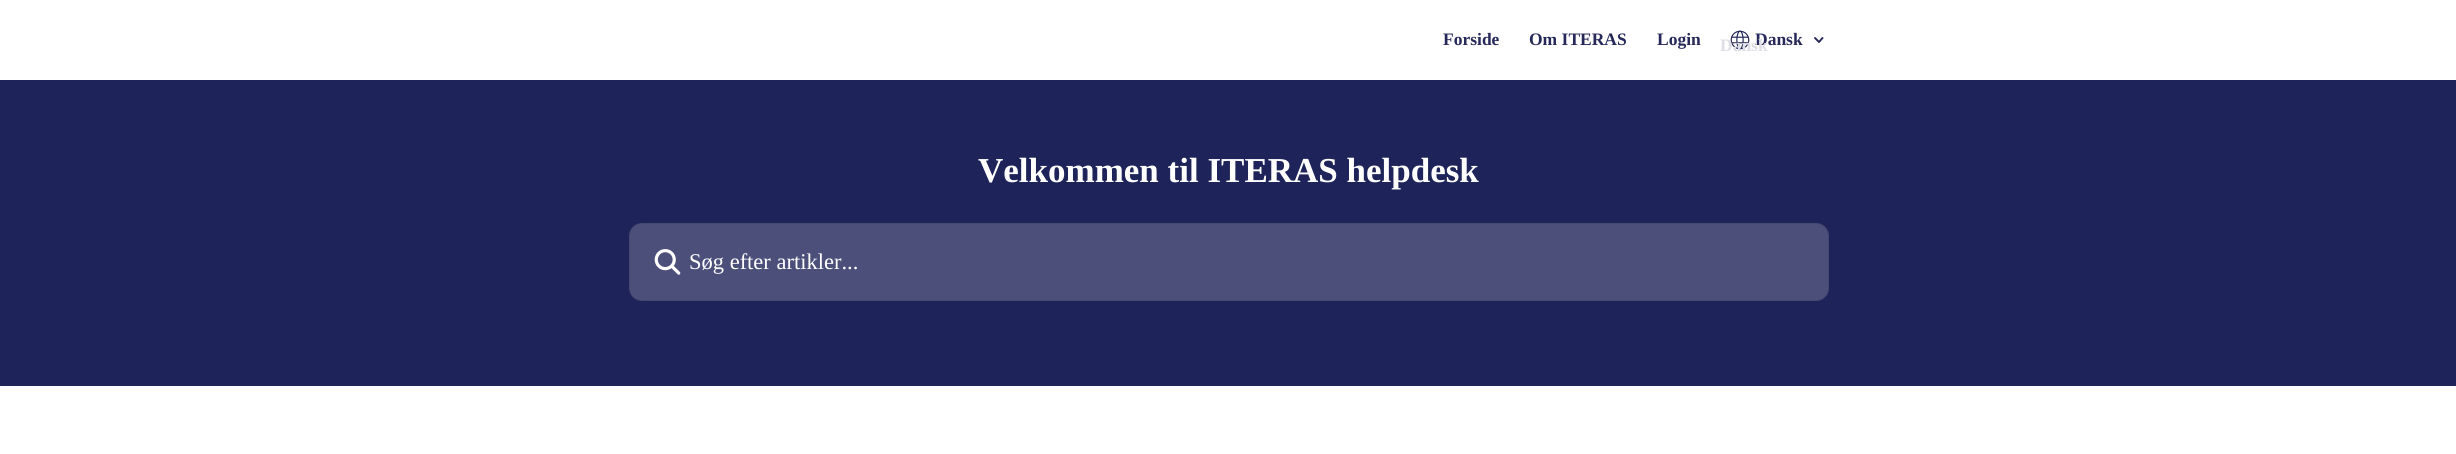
#include <cairo/cairo.h>
#include <math.h>
#include <stddef.h>


static void rounded_rect(cairo_t *cr, double x, double y, double w, double h, double r) {
  cairo_new_sub_path(cr);
  cairo_arc(cr, x + w - r, y + h - r, r, 0, M_PI / 2);
  cairo_arc(cr, x + r, y + h - r, r, M_PI / 2, M_PI);
  cairo_arc(cr, x + r, y + r, r, M_PI, 1.5 * M_PI);
  cairo_arc(cr, x + w - r, y + r, r, 1.5 * M_PI, 2 * M_PI);
  cairo_close_path(cr);
}

static void draw_image(cairo_t *cr, const char *path, double x, double y, double w, double h) {
  cairo_surface_t *image = cairo_image_surface_create_from_png(path);
  cairo_save(cr);
  cairo_set_source_surface(cr, image, x, y);
  cairo_rectangle(cr, x, y, w, h);
  cairo_fill(cr);
  cairo_restore(cr);
  cairo_surface_destroy(image);
}

static void draw(cairo_t *cr) {
  cairo_set_source_rgb(cr, 1, 1, 1);
  cairo_paint(cr);
  draw_image(cr, "images/1.png", 1730, 30, 20, 20);
  cairo_new_path(cr);
  cairo_move_to(cr, 1815, 38);
  cairo_line_to(cr, 1819, 42);
  cairo_line_to(cr, 1822.5, 38);
  cairo_set_source_rgb(cr, 38 / 255.0, 40 / 255.0, 89 / 255.0);
  cairo_set_line_width(cr, 1.9);
  cairo_set_line_cap(cr, CAIRO_LINE_CAP_ROUND);
  cairo_set_line_join(cr, CAIRO_LINE_JOIN_ROUND);
  cairo_stroke(cr);
  cairo_set_source_rgb(cr, 30 / 255.0, 35 / 255.0, 89 / 255.0);
  cairo_rectangle(cr, 0, 80, 2456, 306);
  cairo_fill(cr);
  cairo_set_source_rgb(cr, 75 / 255.0, 79 / 255.0, 122 / 255.0);
  rounded_rect(cr, 629, 223, 1200, 78, 13);
  cairo_fill(cr);
  rounded_rect(cr, 629.5, 223.5, 1199, 77, 12.5);
  cairo_set_source_rgba(cr, 0, 0, 0, 0.08);
  cairo_set_line_width(cr, 1);
  cairo_set_line_cap(cr, CAIRO_LINE_CAP_BUTT);
  cairo_set_line_join(cr, CAIRO_LINE_JOIN_MITER);
  cairo_stroke(cr);
  draw_image(cr, "images/2.png", 654, 249, 27, 26);
  cairo_select_font_face(cr, "Liberation Serif", CAIRO_FONT_SLANT_NORMAL, CAIRO_FONT_WEIGHT_BOLD);
  cairo_set_font_size(cr, 17.5);
  cairo_set_source_rgb(cr, 38 / 255.0, 40 / 255.0, 89 / 255.0);
  cairo_move_to(cr, 1443, 45);
  cairo_show_text(cr, "Forside");
  cairo_move_to(cr, 1529, 45);
  cairo_show_text(cr, "Om ITERAS");
  cairo_move_to(cr, 1657, 45);
  cairo_show_text(cr, "Login");
  cairo_move_to(cr, 1755, 45);
  cairo_show_text(cr, "Dansk");
  cairo_set_source_rgb(cr, 222 / 255.0, 222 / 255.0, 230 / 255.0);
  cairo_move_to(cr, 1720, 51);
  cairo_show_text(cr, "Dansk");
  cairo_set_font_size(cr, 35);
  cairo_set_source_rgb(cr, 1, 1, 1);
  cairo_move_to(cr, 978, 182);
  cairo_show_text(cr, "Velkommen til ITERAS helpdesk");
  cairo_select_font_face(cr, "Liberation Serif", CAIRO_FONT_SLANT_NORMAL, CAIRO_FONT_WEIGHT_NORMAL);
  cairo_set_font_size(cr, 22.5);
  cairo_move_to(cr, 689, 269);
  cairo_show_text(cr, "Søg efter artikler...");
}

int main(void) {
  cairo_surface_t *surface = cairo_image_surface_create(CAIRO_FORMAT_RGB24, 2456, 454);
  cairo_t *cr = cairo_create(surface);
  cairo_font_options_t *options = cairo_font_options_create();
  cairo_font_options_set_hint_metrics(options, CAIRO_HINT_METRICS_OFF);
  cairo_font_options_set_hint_style(options, CAIRO_HINT_STYLE_NONE);
  cairo_set_font_options(cr, options);
  cairo_set_miter_limit(cr, 4);
  draw(cr);
  cairo_surface_write_to_png(surface, "out.png");
  cairo_font_options_destroy(options);
  cairo_destroy(cr);
  cairo_surface_destroy(surface);
  return 0;
}
